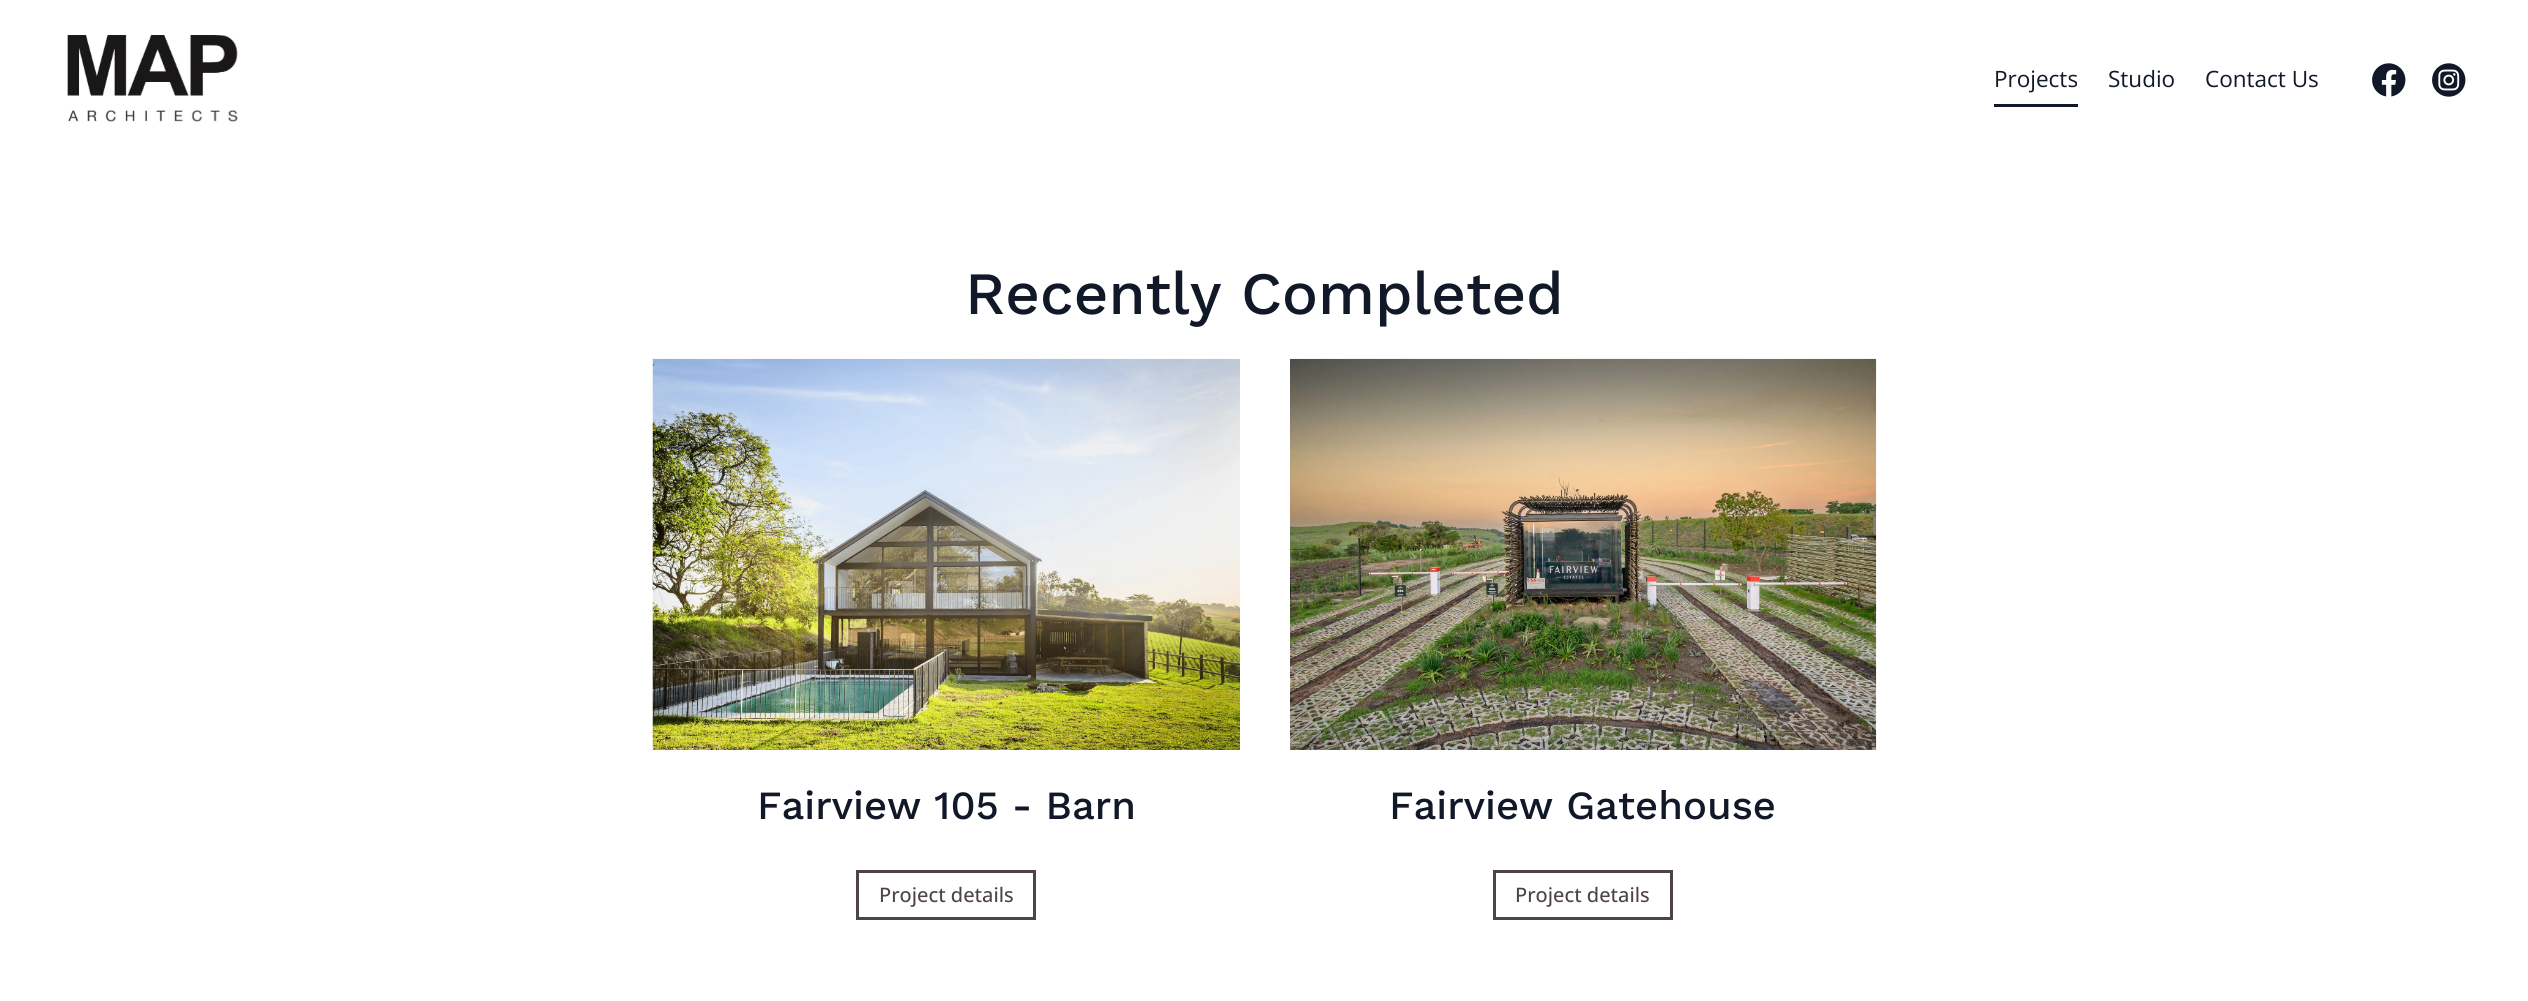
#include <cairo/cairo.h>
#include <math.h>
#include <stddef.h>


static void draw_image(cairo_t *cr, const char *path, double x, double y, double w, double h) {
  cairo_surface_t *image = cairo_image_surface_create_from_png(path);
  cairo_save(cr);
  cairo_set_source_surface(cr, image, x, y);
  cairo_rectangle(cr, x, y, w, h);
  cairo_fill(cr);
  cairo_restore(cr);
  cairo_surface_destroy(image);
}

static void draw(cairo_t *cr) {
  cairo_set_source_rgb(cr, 1, 1, 1);
  cairo_paint(cr);
  draw_image(cr, "images/1.png", 67, 34, 171, 88);
  cairo_set_source_rgb(cr, 17 / 255.0, 24 / 255.0, 39 / 255.0);
  cairo_rectangle(cr, 1994, 104, 84, 3);
  cairo_fill(cr);
  draw_image(cr, "images/2.png", 2372, 63, 34, 34);
  draw_image(cr, "images/3.png", 2432, 63, 34, 34);
  draw_image(cr, "images/4.png", 652, 358, 588, 392);
  cairo_rectangle(cr, 857.5, 871.5, 177, 47);
  cairo_set_source_rgb(cr, 78 / 255.0, 68 / 255.0, 68 / 255.0);
  cairo_set_line_width(cr, 3);
  cairo_stroke(cr);
  draw_image(cr, "images/5.png", 1290, 358, 587, 392);
  cairo_rectangle(cr, 1494.5, 871.5, 177, 47);
  cairo_stroke(cr);
  cairo_select_font_face(cr, "Open Sans", CAIRO_FONT_SLANT_NORMAL, CAIRO_FONT_WEIGHT_NORMAL);
  cairo_set_font_size(cr, 22.5);
  cairo_set_source_rgb(cr, 17 / 255.0, 24 / 255.0, 39 / 255.0);
  cairo_move_to(cr, 1994, 87);
  cairo_show_text(cr, "Projects");
  cairo_move_to(cr, 2108, 87);
  cairo_show_text(cr, "Studio");
  cairo_move_to(cr, 2205, 87);
  cairo_show_text(cr, "Contact Us");
  cairo_select_font_face(cr, "Work Sans Medium", CAIRO_FONT_SLANT_NORMAL, CAIRO_FONT_WEIGHT_NORMAL);
  cairo_set_font_size(cr, 60);
  cairo_move_to(cr, 965, 314);
  cairo_show_text(cr, "Recently Completed");
  cairo_set_font_size(cr, 40);
  cairo_move_to(cr, 757, 819);
  cairo_show_text(cr, "Fairview 105 - Barn");
  cairo_select_font_face(cr, "Open Sans Medium", CAIRO_FONT_SLANT_NORMAL, CAIRO_FONT_WEIGHT_NORMAL);
  cairo_set_font_size(cr, 20);
  cairo_set_source_rgb(cr, 78 / 255.0, 68 / 255.0, 68 / 255.0);
  cairo_move_to(cr, 879, 902);
  cairo_show_text(cr, "Project details");
  cairo_select_font_face(cr, "Work Sans Medium", CAIRO_FONT_SLANT_NORMAL, CAIRO_FONT_WEIGHT_NORMAL);
  cairo_set_font_size(cr, 40);
  cairo_set_source_rgb(cr, 17 / 255.0, 24 / 255.0, 39 / 255.0);
  cairo_move_to(cr, 1389, 819);
  cairo_show_text(cr, "Fairview Gatehouse");
  cairo_select_font_face(cr, "Open Sans Medium", CAIRO_FONT_SLANT_NORMAL, CAIRO_FONT_WEIGHT_NORMAL);
  cairo_set_font_size(cr, 20);
  cairo_set_source_rgb(cr, 78 / 255.0, 68 / 255.0, 68 / 255.0);
  cairo_move_to(cr, 1515, 902);
  cairo_show_text(cr, "Project details");
}

int main(void) {
  cairo_surface_t *surface = cairo_image_surface_create(CAIRO_FORMAT_RGB24, 2528, 1001);
  cairo_t *cr = cairo_create(surface);
  cairo_font_options_t *options = cairo_font_options_create();
  cairo_font_options_set_hint_metrics(options, CAIRO_HINT_METRICS_OFF);
  cairo_font_options_set_hint_style(options, CAIRO_HINT_STYLE_NONE);
  cairo_set_font_options(cr, options);
  cairo_set_miter_limit(cr, 4);
  draw(cr);
  cairo_surface_write_to_png(surface, "out.png");
  cairo_font_options_destroy(options);
  cairo_destroy(cr);
  cairo_surface_destroy(surface);
  return 0;
}
